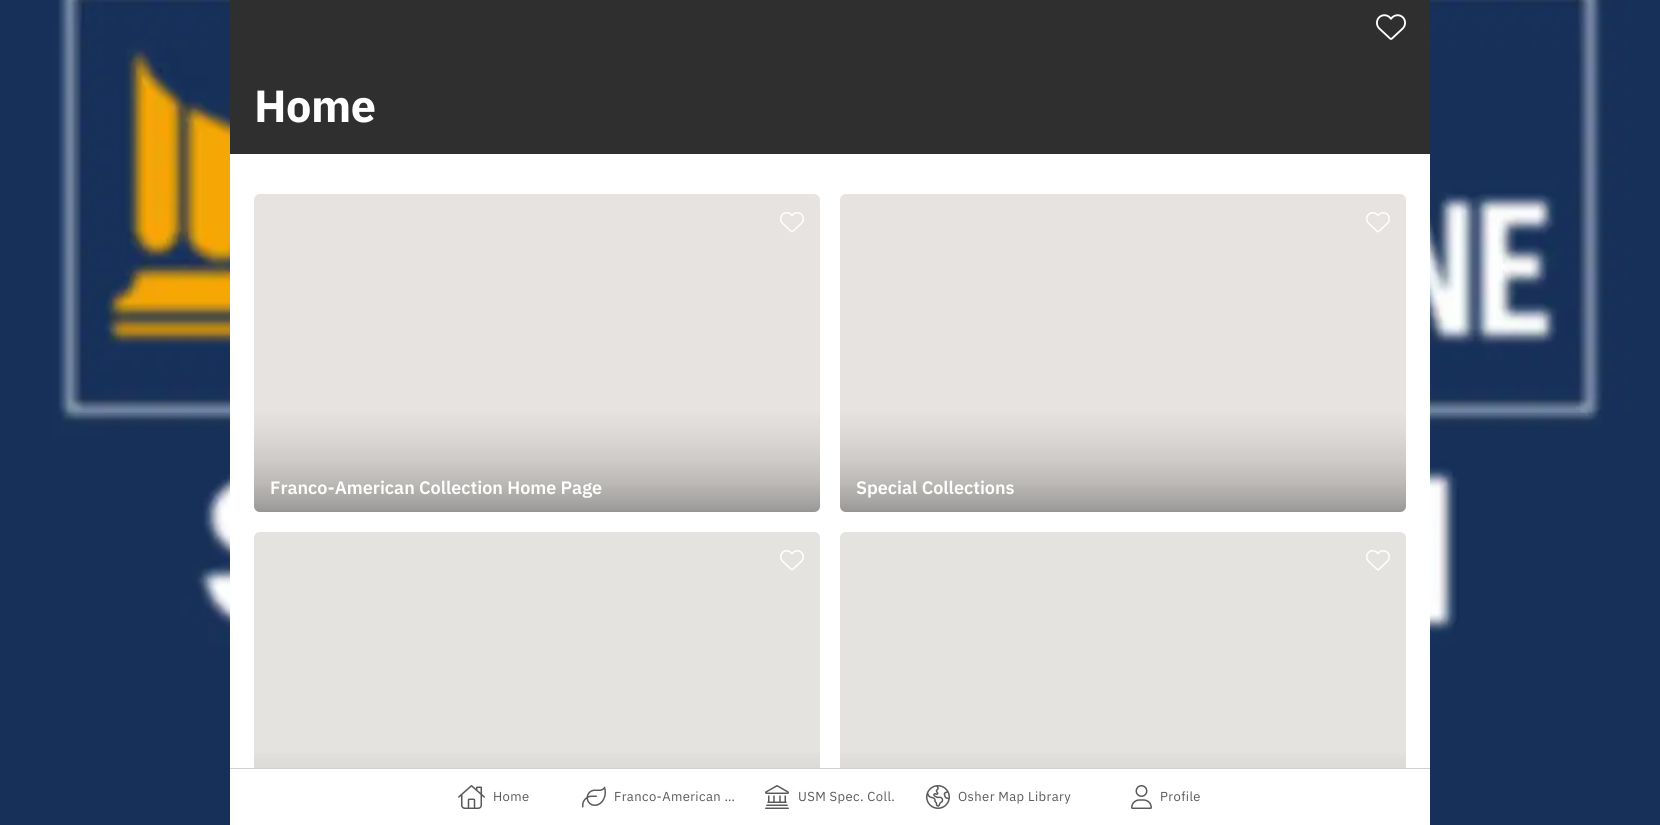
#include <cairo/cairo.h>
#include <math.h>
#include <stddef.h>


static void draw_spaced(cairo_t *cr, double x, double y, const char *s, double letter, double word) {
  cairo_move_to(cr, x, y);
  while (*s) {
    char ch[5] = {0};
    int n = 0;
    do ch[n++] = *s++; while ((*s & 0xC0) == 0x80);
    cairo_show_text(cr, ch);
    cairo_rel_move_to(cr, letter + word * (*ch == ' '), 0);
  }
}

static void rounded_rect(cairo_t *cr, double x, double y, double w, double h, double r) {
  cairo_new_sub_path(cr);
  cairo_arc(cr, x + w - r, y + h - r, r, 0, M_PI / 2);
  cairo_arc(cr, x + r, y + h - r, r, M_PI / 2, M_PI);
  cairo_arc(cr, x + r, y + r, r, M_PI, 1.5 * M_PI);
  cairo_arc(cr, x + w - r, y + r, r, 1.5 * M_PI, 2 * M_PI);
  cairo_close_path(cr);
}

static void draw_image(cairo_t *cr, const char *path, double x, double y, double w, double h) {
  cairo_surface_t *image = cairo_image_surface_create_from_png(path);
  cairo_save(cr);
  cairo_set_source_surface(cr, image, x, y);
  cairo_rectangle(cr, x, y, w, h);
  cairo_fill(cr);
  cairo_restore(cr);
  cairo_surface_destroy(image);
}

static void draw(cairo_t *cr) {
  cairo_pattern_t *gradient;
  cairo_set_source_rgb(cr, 1, 1, 1);
  cairo_paint(cr);
  draw_image(cr, "images/1.png", 0, 823, 1660, 2);
  draw_image(cr, "images/2.png", 0, 0, 1660, 825);
  cairo_set_source_rgb(cr, 1, 1, 1);
  cairo_rectangle(cr, 230, 154, 1200, 614);
  cairo_fill(cr);
  cairo_set_source_rgb(cr, 47 / 255.0, 47 / 255.0, 47 / 255.0);
  cairo_rectangle(cr, 230, 0, 1200, 154);
  cairo_fill(cr);
  draw_image(cr, "images/3.png", 1376, 14, 30, 26);
  cairo_set_source_rgb(cr, 230 / 255.0, 227 / 255.0, 224 / 255.0);
  rounded_rect(cr, 254, 194, 566, 318, 6);
  cairo_fill(cr);
  gradient = cairo_pattern_create_linear(537, 401, 537, 512);
  cairo_pattern_add_color_stop_rgba(gradient, 0, 0, 0, 0, 0);
  cairo_pattern_add_color_stop_rgba(gradient, 0.08, 0, 0, 0, 0);
  cairo_pattern_add_color_stop_rgba(gradient, 0.17, 0, 0, 0, 0.02);
  cairo_pattern_add_color_stop_rgba(gradient, 0.27, 0, 0, 0, 0.04);
  cairo_pattern_add_color_stop_rgba(gradient, 0.36, 0, 0, 0, 0.06);
  cairo_pattern_add_color_stop_rgba(gradient, 0.46, 0, 0, 0, 0.09);
  cairo_pattern_add_color_stop_rgba(gradient, 0.55, 0, 0, 0, 0.11);
  cairo_pattern_add_color_stop_rgba(gradient, 0.64, 0, 0, 0, 0.15);
  cairo_pattern_add_color_stop_rgba(gradient, 0.73, 0, 0, 0, 0.18);
  cairo_pattern_add_color_stop_rgba(gradient, 0.8, 0, 0, 0, 0.22);
  cairo_pattern_add_color_stop_rgba(gradient, 0.87, 0, 0, 0, 0.25);
  cairo_pattern_add_color_stop_rgba(gradient, 0.92, 0, 0, 0, 0.28);
  cairo_pattern_add_color_stop_rgba(gradient, 0.96, 0, 0, 0, 0.31);
  cairo_pattern_add_color_stop_rgba(gradient, 0.99, 0, 0, 0, 0.33);
  cairo_pattern_add_color_stop_rgba(gradient, 1, 0, 0, 0, 0.35);
  cairo_set_source(cr, gradient);
  cairo_pattern_destroy(gradient);
  cairo_new_path(cr);
  cairo_move_to(cr, 254, 401);
  cairo_line_to(cr, 820, 401);
  cairo_line_to(cr, 820, 506);
  cairo_curve_to(cr, 820, 509.5, 817.5, 512, 814, 512);
  cairo_line_to(cr, 260, 512);
  cairo_curve_to(cr, 256.5, 512, 254, 509.5, 254, 506);
  cairo_close_path(cr);
  cairo_fill(cr);
  draw_image(cr, "images/4.png", 780, 212, 24, 21);
  cairo_set_source_rgb(cr, 230 / 255.0, 227 / 255.0, 224 / 255.0);
  rounded_rect(cr, 840, 194, 566, 318, 6);
  cairo_fill(cr);
  gradient = cairo_pattern_create_linear(1123, 401, 1123, 512);
  cairo_pattern_add_color_stop_rgba(gradient, 0, 0, 0, 0, 0);
  cairo_pattern_add_color_stop_rgba(gradient, 0.08, 0, 0, 0, 0);
  cairo_pattern_add_color_stop_rgba(gradient, 0.17, 0, 0, 0, 0.02);
  cairo_pattern_add_color_stop_rgba(gradient, 0.27, 0, 0, 0, 0.04);
  cairo_pattern_add_color_stop_rgba(gradient, 0.36, 0, 0, 0, 0.06);
  cairo_pattern_add_color_stop_rgba(gradient, 0.46, 0, 0, 0, 0.09);
  cairo_pattern_add_color_stop_rgba(gradient, 0.55, 0, 0, 0, 0.11);
  cairo_pattern_add_color_stop_rgba(gradient, 0.64, 0, 0, 0, 0.15);
  cairo_pattern_add_color_stop_rgba(gradient, 0.73, 0, 0, 0, 0.18);
  cairo_pattern_add_color_stop_rgba(gradient, 0.8, 0, 0, 0, 0.22);
  cairo_pattern_add_color_stop_rgba(gradient, 0.87, 0, 0, 0, 0.25);
  cairo_pattern_add_color_stop_rgba(gradient, 0.92, 0, 0, 0, 0.28);
  cairo_pattern_add_color_stop_rgba(gradient, 0.96, 0, 0, 0, 0.31);
  cairo_pattern_add_color_stop_rgba(gradient, 0.99, 0, 0, 0, 0.33);
  cairo_pattern_add_color_stop_rgba(gradient, 1, 0, 0, 0, 0.35);
  cairo_set_source(cr, gradient);
  cairo_pattern_destroy(gradient);
  cairo_new_path(cr);
  cairo_move_to(cr, 840, 401);
  cairo_line_to(cr, 1406, 401);
  cairo_line_to(cr, 1406, 506);
  cairo_curve_to(cr, 1406, 509.5, 1403.5, 512, 1400, 512);
  cairo_line_to(cr, 846, 512);
  cairo_curve_to(cr, 842.5, 512, 840, 509.5, 840, 506);
  cairo_close_path(cr);
  cairo_fill(cr);
  draw_image(cr, "images/4.png", 1366, 212, 24, 21);
  cairo_set_source_rgb(cr, 229 / 255.0, 227 / 255.0, 224 / 255.0);
  cairo_new_path(cr);
  cairo_move_to(cr, 260, 532);
  cairo_line_to(cr, 814, 532);
  cairo_curve_to(cr, 817.5, 532, 820, 534.5, 820, 538);
  cairo_line_to(cr, 820, 825);
  cairo_line_to(cr, 254, 825);
  cairo_line_to(cr, 254, 538);
  cairo_curve_to(cr, 254, 534.5, 256.5, 532, 260, 532);
  cairo_close_path(cr);
  cairo_fill(cr);
  draw_image(cr, "images/5.png", 780, 550, 24, 21);
  gradient = cairo_pattern_create_linear(537, 739, 537, 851);
  cairo_pattern_add_color_stop_rgba(gradient, 0, 229 / 255.0, 227 / 255.0, 224 / 255.0, 1);
  cairo_pattern_add_color_stop_rgba(gradient, 0.08, 229 / 255.0, 227 / 255.0, 224 / 255.0, 1);
  cairo_pattern_add_color_stop_rgba(gradient, 0.17, 224 / 255.0, 222 / 255.0, 220 / 255.0, 1);
  cairo_pattern_add_color_stop_rgba(gradient, 0.27, 220 / 255.0, 218 / 255.0, 215 / 255.0, 1);
  cairo_pattern_add_color_stop_rgba(gradient, 0.36, 215 / 255.0, 213 / 255.0, 211 / 255.0, 1);
  cairo_pattern_add_color_stop_rgba(gradient, 0.46, 208 / 255.0, 207 / 255.0, 204 / 255.0, 1);
  cairo_pattern_add_color_stop_rgba(gradient, 0.55, 204 / 255.0, 202 / 255.0, 199 / 255.0, 1);
  cairo_pattern_add_color_stop_rgba(gradient, 0.64, 195 / 255.0, 193 / 255.0, 190 / 255.0, 1);
  cairo_pattern_add_color_stop_rgba(gradient, 0.73, 188 / 255.0, 186 / 255.0, 184 / 255.0, 1);
  cairo_pattern_add_color_stop_rgba(gradient, 0.8, 179 / 255.0, 177 / 255.0, 175 / 255.0, 1);
  cairo_pattern_add_color_stop_rgba(gradient, 0.87, 172 / 255.0, 170 / 255.0, 168 / 255.0, 1);
  cairo_pattern_add_color_stop_rgba(gradient, 0.92, 165 / 255.0, 163 / 255.0, 161 / 255.0, 1);
  cairo_pattern_add_color_stop_rgba(gradient, 0.96, 158 / 255.0, 157 / 255.0, 155 / 255.0, 1);
  cairo_pattern_add_color_stop_rgba(gradient, 0.99, 153 / 255.0, 152 / 255.0, 150 / 255.0, 1);
  cairo_pattern_add_color_stop_rgba(gradient, 1, 149 / 255.0, 148 / 255.0, 146 / 255.0, 1);
  cairo_set_source(cr, gradient);
  cairo_pattern_destroy(gradient);
  cairo_rectangle(cr, 254, 753, 566, 15);
  cairo_fill(cr);
  cairo_set_source_rgb(cr, 229 / 255.0, 227 / 255.0, 224 / 255.0);
  cairo_new_path(cr);
  cairo_move_to(cr, 846, 532);
  cairo_line_to(cr, 1400, 532);
  cairo_curve_to(cr, 1403.5, 532, 1406, 534.5, 1406, 538);
  cairo_line_to(cr, 1406, 825);
  cairo_line_to(cr, 840, 825);
  cairo_line_to(cr, 840, 538);
  cairo_curve_to(cr, 840, 534.5, 842.5, 532, 846, 532);
  cairo_close_path(cr);
  cairo_fill(cr);
  draw_image(cr, "images/5.png", 1366, 550, 24, 21);
  gradient = cairo_pattern_create_linear(1123, 739, 1123, 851);
  cairo_pattern_add_color_stop_rgba(gradient, 0, 229 / 255.0, 227 / 255.0, 224 / 255.0, 1);
  cairo_pattern_add_color_stop_rgba(gradient, 0.08, 229 / 255.0, 227 / 255.0, 224 / 255.0, 1);
  cairo_pattern_add_color_stop_rgba(gradient, 0.17, 224 / 255.0, 222 / 255.0, 220 / 255.0, 1);
  cairo_pattern_add_color_stop_rgba(gradient, 0.27, 220 / 255.0, 218 / 255.0, 215 / 255.0, 1);
  cairo_pattern_add_color_stop_rgba(gradient, 0.36, 215 / 255.0, 213 / 255.0, 211 / 255.0, 1);
  cairo_pattern_add_color_stop_rgba(gradient, 0.46, 208 / 255.0, 207 / 255.0, 204 / 255.0, 1);
  cairo_pattern_add_color_stop_rgba(gradient, 0.55, 204 / 255.0, 202 / 255.0, 199 / 255.0, 1);
  cairo_pattern_add_color_stop_rgba(gradient, 0.64, 195 / 255.0, 193 / 255.0, 190 / 255.0, 1);
  cairo_pattern_add_color_stop_rgba(gradient, 0.73, 188 / 255.0, 186 / 255.0, 184 / 255.0, 1);
  cairo_pattern_add_color_stop_rgba(gradient, 0.8, 179 / 255.0, 177 / 255.0, 175 / 255.0, 1);
  cairo_pattern_add_color_stop_rgba(gradient, 0.87, 172 / 255.0, 170 / 255.0, 168 / 255.0, 1);
  cairo_pattern_add_color_stop_rgba(gradient, 0.92, 165 / 255.0, 163 / 255.0, 161 / 255.0, 1);
  cairo_pattern_add_color_stop_rgba(gradient, 0.96, 158 / 255.0, 157 / 255.0, 155 / 255.0, 1);
  cairo_pattern_add_color_stop_rgba(gradient, 0.99, 153 / 255.0, 152 / 255.0, 150 / 255.0, 1);
  cairo_pattern_add_color_stop_rgba(gradient, 1, 149 / 255.0, 148 / 255.0, 146 / 255.0, 1);
  cairo_set_source(cr, gradient);
  cairo_pattern_destroy(gradient);
  cairo_rectangle(cr, 840, 753, 566, 15);
  cairo_fill(cr);
  cairo_set_source_rgb(cr, 1, 1, 1);
  cairo_rectangle(cr, 230, 769, 1200, 56);
  cairo_fill(cr);
  cairo_set_source_rgb(cr, 209 / 255.0, 209 / 255.0, 209 / 255.0);
  cairo_rectangle(cr, 230, 768, 1200, 1);
  cairo_fill(cr);
  draw_image(cr, "images/6.png", 458, 785, 27, 24);
  draw_image(cr, "images/7.png", 582, 786, 24, 22);
  draw_image(cr, "images/8.png", 765, 785, 24, 24);
  draw_image(cr, "images/9.png", 926, 785, 24, 24);
  draw_image(cr, "images/10.png", 1131, 785, 21, 24);
  cairo_select_font_face(cr, "IBM Plex Sans", CAIRO_FONT_SLANT_NORMAL, CAIRO_FONT_WEIGHT_BOLD);
  cairo_set_font_size(cr, 45);
  cairo_set_source_rgb(cr, 1, 1, 1);
  draw_spaced(cr, 254, 122, "Home", -0.5, 0);
  cairo_select_font_face(cr, "IBM Plex Sans SemiBold", CAIRO_FONT_SLANT_NORMAL, CAIRO_FONT_WEIGHT_NORMAL);
  cairo_set_font_size(cr, 18);
  cairo_move_to(cr, 270, 494);
  cairo_show_text(cr, "Franco-American Collection Home Page");
  cairo_move_to(cr, 856, 494);
  cairo_show_text(cr, "Special Collections");
  cairo_select_font_face(cr, "IBM Plex Sans", CAIRO_FONT_SLANT_NORMAL, CAIRO_FONT_WEIGHT_NORMAL);
  cairo_set_font_size(cr, 13);
  cairo_set_source_rgb(cr, 89 / 255.0, 89 / 255.0, 89 / 255.0);
  draw_spaced(cr, 493, 801, "Home", 0.4, 0);
  draw_spaced(cr, 614, 801, "Franco-American …", 0.4, 0);
  draw_spaced(cr, 798, 801, "USM Spec. Coll.", 0.4, 0);
  draw_spaced(cr, 958, 801, "Osher Map Library", 0.4, 0);
  draw_spaced(cr, 1160, 801, "Profile", 0.4, 0);
}

int main(void) {
  cairo_surface_t *surface = cairo_image_surface_create(CAIRO_FORMAT_RGB24, 1660, 825);
  cairo_t *cr = cairo_create(surface);
  cairo_font_options_t *options = cairo_font_options_create();
  cairo_font_options_set_hint_metrics(options, CAIRO_HINT_METRICS_OFF);
  cairo_font_options_set_hint_style(options, CAIRO_HINT_STYLE_NONE);
  cairo_set_font_options(cr, options);
  cairo_set_miter_limit(cr, 4);
  draw(cr);
  cairo_surface_write_to_png(surface, "out.png");
  cairo_font_options_destroy(options);
  cairo_destroy(cr);
  cairo_surface_destroy(surface);
  return 0;
}
